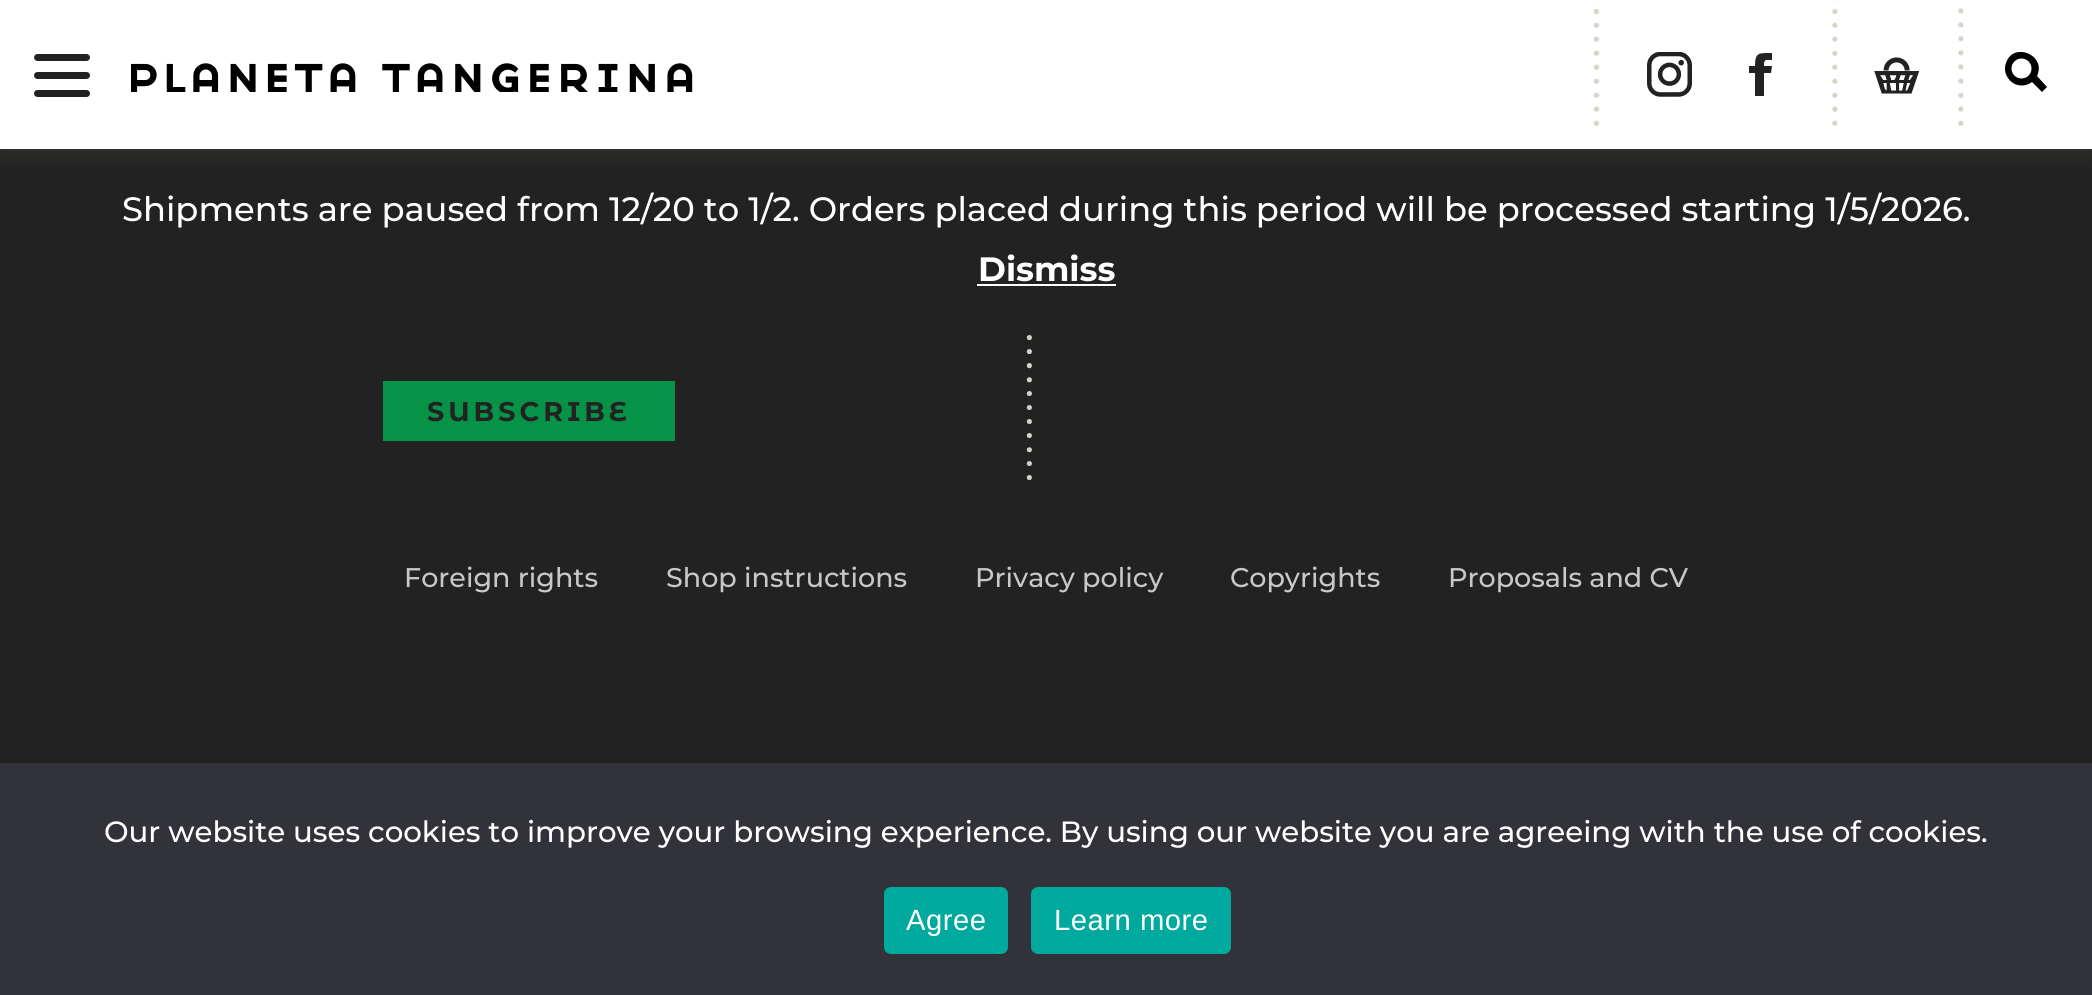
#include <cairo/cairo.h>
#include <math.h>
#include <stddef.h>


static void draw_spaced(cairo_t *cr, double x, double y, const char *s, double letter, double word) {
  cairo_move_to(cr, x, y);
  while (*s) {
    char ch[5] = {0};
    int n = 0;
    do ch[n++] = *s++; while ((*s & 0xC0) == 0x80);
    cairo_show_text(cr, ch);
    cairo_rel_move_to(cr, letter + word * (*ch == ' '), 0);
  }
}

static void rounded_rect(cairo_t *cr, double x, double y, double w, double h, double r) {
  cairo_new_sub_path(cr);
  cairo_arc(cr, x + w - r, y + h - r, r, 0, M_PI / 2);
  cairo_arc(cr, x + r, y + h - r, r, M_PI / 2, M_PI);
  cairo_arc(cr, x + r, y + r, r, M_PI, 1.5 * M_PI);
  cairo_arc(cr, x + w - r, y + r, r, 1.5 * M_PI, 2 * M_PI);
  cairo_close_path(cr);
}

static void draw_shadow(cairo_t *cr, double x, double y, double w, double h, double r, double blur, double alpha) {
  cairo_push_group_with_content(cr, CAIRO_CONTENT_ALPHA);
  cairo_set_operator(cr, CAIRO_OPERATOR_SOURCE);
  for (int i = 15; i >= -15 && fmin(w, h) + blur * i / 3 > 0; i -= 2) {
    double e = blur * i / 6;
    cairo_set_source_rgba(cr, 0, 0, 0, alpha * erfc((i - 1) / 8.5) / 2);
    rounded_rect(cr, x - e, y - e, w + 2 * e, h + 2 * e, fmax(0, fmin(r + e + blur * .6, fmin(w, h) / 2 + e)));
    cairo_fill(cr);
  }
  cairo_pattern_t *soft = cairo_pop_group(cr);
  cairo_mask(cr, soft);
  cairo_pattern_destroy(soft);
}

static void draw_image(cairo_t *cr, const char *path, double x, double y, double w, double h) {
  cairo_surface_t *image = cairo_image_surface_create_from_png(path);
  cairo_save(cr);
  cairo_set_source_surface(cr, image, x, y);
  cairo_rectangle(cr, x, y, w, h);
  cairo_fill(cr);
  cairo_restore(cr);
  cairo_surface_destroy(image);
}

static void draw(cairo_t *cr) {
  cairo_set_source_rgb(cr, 34 / 255.0, 34 / 255.0, 34 / 255.0);
  cairo_paint(cr);
  cairo_set_source_rgb(cr, 139 / 255.0, 136 / 255.0, 109 / 255.0);
  draw_shadow(cr, 0, 7, 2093, 148, 0, 9, 0.15);
  cairo_set_source_rgb(cr, 1, 1, 1);
  cairo_rectangle(cr, 0, 0, 2092, 149);
  cairo_fill(cr);
  cairo_set_source_rgb(cr, 34 / 255.0, 34 / 255.0, 34 / 255.0);
  rounded_rect(cr, 34, 72, 56, 7, 3.5);
  cairo_fill(cr);
  rounded_rect(cr, 34, 54, 56, 7, 3.5);
  cairo_fill(cr);
  rounded_rect(cr, 34, 90, 56, 7, 3.5);
  cairo_fill(cr);
  draw_image(cr, "images/1.png", 131, 63, 562, 29);
  draw_image(cr, "images/2.png", 1593, 0, 7, 126);
  draw_image(cr, "images/3.png", 1647, 52, 45, 45);
  cairo_new_path(cr);
  cairo_move_to(cr, 1772, 66);
  cairo_line_to(cr, 1764, 66);
  cairo_curve_to(cr, 1764, 59, 1765, 60, 1772, 60);
  cairo_line_to(cr, 1772, 53);
  cairo_curve_to(cr, 1759, 53, 1755, 52, 1755, 66);
  cairo_line_to(cr, 1749, 66);
  cairo_line_to(cr, 1749, 73);
  cairo_line_to(cr, 1755, 73);
  cairo_line_to(cr, 1755, 96);
  cairo_line_to(cr, 1764, 96);
  cairo_line_to(cr, 1764, 73);
  cairo_line_to(cr, 1771, 73);
  cairo_close_path(cr);
  cairo_fill(cr);
  draw_image(cr, "images/4.png", 1832, 0, 6, 126);
  draw_image(cr, "images/5.png", 1874, 57, 45, 37);
  draw_image(cr, "images/6.png", 1958, 7, 6, 119);
  cairo_save(cr);
  cairo_rectangle(cr, 2005, 52, 43, 40);
  cairo_clip(cr);
  cairo_set_source_rgb(cr, 0, 0, 0);
  cairo_new_path(cr);
  cairo_move_to(cr, 2032, 82);
  cairo_curve_to(cr, 2024, 88, 2013, 86, 2008, 78);
  cairo_curve_to(cr, 2005, 74, 2004, 68, 2006, 63);
  cairo_curve_to(cr, 2013, 41, 2047, 55, 2037, 76);
  cairo_line_to(cr, 2047, 87);
  cairo_line_to(cr, 2042, 92);
  cairo_close_path(cr);
  cairo_fill(cr);
  cairo_restore(cr);
  cairo_set_source_rgb(cr, 1, 1, 1);
  cairo_arc(cr, 2021.5, 68.5, 10, 0, 2 * M_PI);
  cairo_fill(cr);
  cairo_rectangle(cr, 977, 284, 139, 2);
  cairo_fill(cr);
  cairo_set_source_rgb(cr, 7 / 255.0, 147 / 255.0, 71 / 255.0);
  cairo_rectangle(cr, 383, 381, 292, 60);
  cairo_fill(cr);
  draw_image(cr, "images/7.png", 1026, 335, 6, 145);
  cairo_set_source_rgb(cr, 50 / 255.0, 50 / 255.0, 58 / 255.0);
  cairo_rectangle(cr, 0, 763, 2092, 232);
  cairo_fill(cr);
  cairo_set_source_rgb(cr, 0, 169 / 255.0, 157 / 255.0);
  rounded_rect(cr, 884, 887, 124, 67, 7);
  cairo_fill(cr);
  rounded_rect(cr, 1031, 887, 200, 67, 7);
  cairo_fill(cr);
  cairo_select_font_face(cr, "Montserrat Medium", CAIRO_FONT_SLANT_NORMAL, CAIRO_FONT_WEIGHT_NORMAL);
  cairo_set_font_size(cr, 33.75);
  cairo_set_source_rgb(cr, 1, 1, 1);
  cairo_move_to(cr, 122, 221);
  cairo_show_text(cr, "Shipments are paused from 12/20 to 1/2. Orders placed during this period will be processed starting 1/5/2026.");
  cairo_select_font_face(cr, "Montserrat", CAIRO_FONT_SLANT_NORMAL, CAIRO_FONT_WEIGHT_BOLD);
  cairo_move_to(cr, 978, 281);
  cairo_show_text(cr, "Dismiss");
  cairo_select_font_face(cr, "Montserrat Alternates", CAIRO_FONT_SLANT_NORMAL, CAIRO_FONT_WEIGHT_BOLD);
  cairo_set_font_size(cr, 27);
  cairo_set_source_rgb(cr, 34 / 255.0, 34 / 255.0, 34 / 255.0);
  draw_spaced(cr, 427, 421, "SUBSCRIBE", 4, 0);
  cairo_select_font_face(cr, "Montserrat Medium", CAIRO_FONT_SLANT_NORMAL, CAIRO_FONT_WEIGHT_NORMAL);
  cairo_set_source_rgb(cr, 200 / 255.0, 200 / 255.0, 200 / 255.0);
  cairo_move_to(cr, 404, 587);
  cairo_show_text(cr, "Foreign rights");
  cairo_move_to(cr, 666, 587);
  cairo_show_text(cr, "Shop instructions");
  cairo_move_to(cr, 975, 587);
  cairo_show_text(cr, "Privacy policy");
  cairo_move_to(cr, 1230, 587);
  cairo_show_text(cr, "Copyrights");
  cairo_move_to(cr, 1448, 587);
  cairo_show_text(cr, "Proposals and CV");
  cairo_set_font_size(cr, 29.25);
  cairo_set_source_rgb(cr, 1, 1, 1);
  cairo_move_to(cr, 104, 842);
  cairo_show_text(cr, "Our website uses cookies to improve your browsing experience. By using our website you are agreeing with the use of cookies.");
  cairo_select_font_face(cr, "Liberation Sans", CAIRO_FONT_SLANT_NORMAL, CAIRO_FONT_WEIGHT_NORMAL);
  draw_spaced(cr, 906, 930, "Agree", 0.5, 0);
  draw_spaced(cr, 1054, 930, "Learn more", 0.5, 0);
}

int main(void) {
  cairo_surface_t *surface = cairo_image_surface_create(CAIRO_FORMAT_RGB24, 2092, 995);
  cairo_t *cr = cairo_create(surface);
  cairo_font_options_t *options = cairo_font_options_create();
  cairo_font_options_set_hint_metrics(options, CAIRO_HINT_METRICS_OFF);
  cairo_font_options_set_hint_style(options, CAIRO_HINT_STYLE_NONE);
  cairo_set_font_options(cr, options);
  cairo_set_miter_limit(cr, 4);
  draw(cr);
  cairo_surface_write_to_png(surface, "out.png");
  cairo_font_options_destroy(options);
  cairo_destroy(cr);
  cairo_surface_destroy(surface);
  return 0;
}
